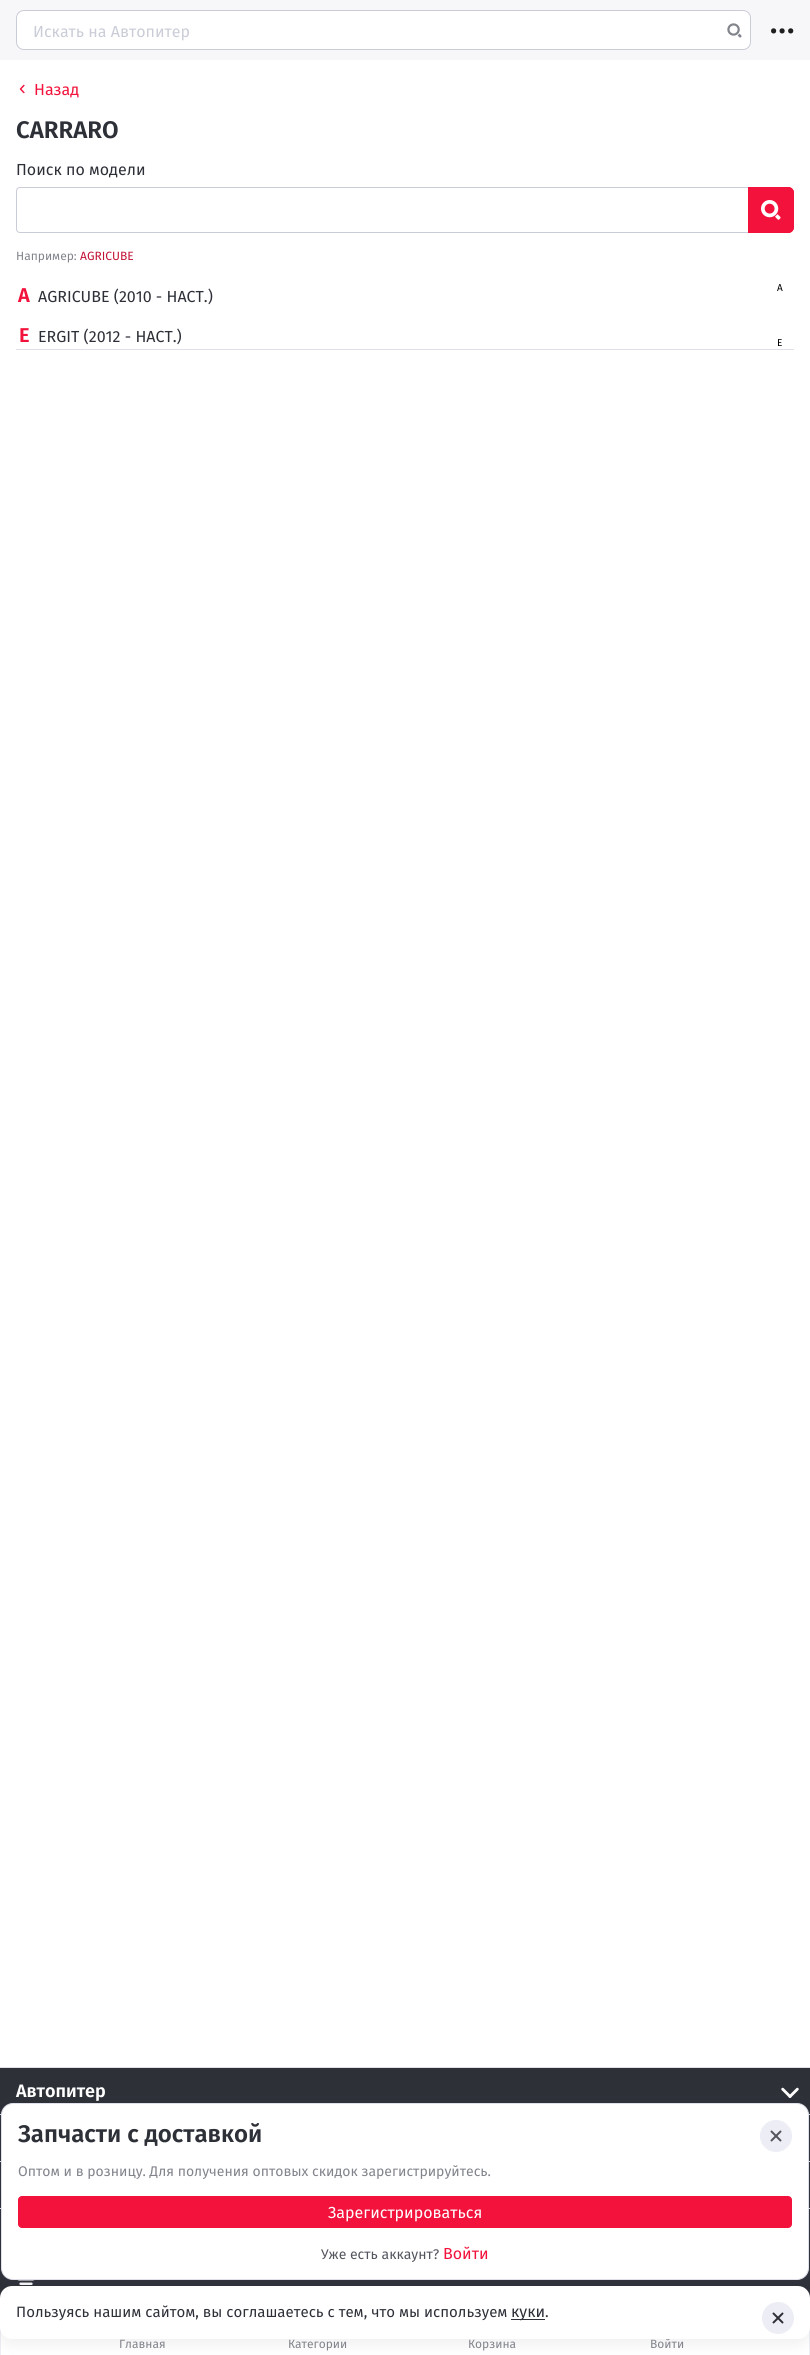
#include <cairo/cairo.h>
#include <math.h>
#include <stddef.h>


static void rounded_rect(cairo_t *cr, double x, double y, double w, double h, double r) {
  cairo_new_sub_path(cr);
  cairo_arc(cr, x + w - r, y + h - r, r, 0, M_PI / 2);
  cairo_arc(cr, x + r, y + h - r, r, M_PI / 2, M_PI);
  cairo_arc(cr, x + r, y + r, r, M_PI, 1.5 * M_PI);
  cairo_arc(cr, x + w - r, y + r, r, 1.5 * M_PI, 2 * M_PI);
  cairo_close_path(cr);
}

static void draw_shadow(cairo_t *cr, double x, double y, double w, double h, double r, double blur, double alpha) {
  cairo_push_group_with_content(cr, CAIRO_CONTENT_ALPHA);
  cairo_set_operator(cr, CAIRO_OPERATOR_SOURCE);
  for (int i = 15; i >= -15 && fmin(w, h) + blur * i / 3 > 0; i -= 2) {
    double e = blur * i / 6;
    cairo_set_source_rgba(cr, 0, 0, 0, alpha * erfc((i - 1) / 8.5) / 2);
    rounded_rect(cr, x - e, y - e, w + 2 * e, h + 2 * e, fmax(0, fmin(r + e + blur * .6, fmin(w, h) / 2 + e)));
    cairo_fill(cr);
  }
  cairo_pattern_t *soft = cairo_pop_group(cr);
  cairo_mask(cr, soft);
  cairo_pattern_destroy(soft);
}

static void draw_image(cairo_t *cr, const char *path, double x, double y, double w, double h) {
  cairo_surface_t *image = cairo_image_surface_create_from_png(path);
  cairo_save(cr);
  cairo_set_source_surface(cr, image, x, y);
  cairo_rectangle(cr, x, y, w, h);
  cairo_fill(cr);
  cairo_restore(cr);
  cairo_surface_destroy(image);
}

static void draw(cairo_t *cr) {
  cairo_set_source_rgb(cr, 1, 1, 1);
  cairo_paint(cr);
  cairo_set_source_rgb(cr, 247 / 255.0, 247 / 255.0, 250 / 255.0);
  cairo_rectangle(cr, 0, 0, 810, 60);
  cairo_fill(cr);
  cairo_set_source_rgb(cr, 1, 1, 1);
  rounded_rect(cr, 16.5, 10.5, 734, 39, 7.5);
  cairo_fill_preserve(cr);
  cairo_set_source_rgb(cr, 202 / 255.0, 205 / 255.0, 215 / 255.0);
  cairo_set_line_width(cr, 1);
  cairo_stroke(cr);
  draw_image(cr, "images/1.png", 727, 23, 15, 15);
  cairo_set_source_rgb(cr, 32 / 255.0, 31 / 255.0, 31 / 255.0);
  cairo_arc(cr, 773.6, 30.9, 2.6, 0, 2 * M_PI);
  cairo_fill(cr);
  cairo_arc(cr, 782.1, 30.9, 2.6, 0, 2 * M_PI);
  cairo_fill(cr);
  cairo_arc(cr, 790.7, 30.9, 2.6, 0, 2 * M_PI);
  cairo_fill(cr);
  draw_image(cr, "images/2.png", 19, 84, 6, 10);
  cairo_new_path(cr);
  cairo_move_to(cr, 20, 187.5);
  cairo_line_to(cr, 748.5, 187.5);
  cairo_line_to(cr, 748.5, 232.5);
  cairo_line_to(cr, 20, 232.5);
  cairo_curve_to(cr, 18, 232.5, 16.5, 231, 16.5, 229);
  cairo_line_to(cr, 16.5, 191);
  cairo_curve_to(cr, 16.5, 189, 18, 187.5, 20, 187.5);
  cairo_close_path(cr);
  cairo_set_source_rgb(cr, 202 / 255.0, 205 / 255.0, 215 / 255.0);
  cairo_stroke(cr);
  cairo_set_source_rgb(cr, 242 / 255.0, 18 / 255.0, 59 / 255.0);
  cairo_new_path(cr);
  cairo_move_to(cr, 748, 187);
  cairo_line_to(cr, 788, 187);
  cairo_curve_to(cr, 791.5, 187, 794, 189.5, 794, 193);
  cairo_line_to(cr, 794, 227);
  cairo_curve_to(cr, 794, 230.5, 791.5, 233, 788, 233);
  cairo_line_to(cr, 748, 233);
  cairo_close_path(cr);
  cairo_fill(cr);
  draw_image(cr, "images/3.png", 761, 200, 20, 20);
  cairo_new_path(cr);
  cairo_move_to(cr, 748.5, 187.5);
  cairo_line_to(cr, 788, 187.5);
  cairo_curve_to(cr, 791, 187.5, 793.5, 190, 793.5, 193);
  cairo_line_to(cr, 793.5, 227);
  cairo_curve_to(cr, 793.5, 230, 791, 232.5, 788, 232.5);
  cairo_line_to(cr, 748.5, 232.5);
  cairo_close_path(cr);
  cairo_stroke(cr);
  cairo_set_source_rgb(cr, 224 / 255.0, 224 / 255.0, 235 / 255.0);
  cairo_rectangle(cr, 16, 349, 778, 1);
  cairo_fill(cr);
  cairo_set_source_rgb(cr, 46 / 255.0, 48 / 255.0, 56 / 255.0);
  cairo_rectangle(cr, 0, 2068, 810, 230);
  cairo_fill(cr);
  cairo_set_source_rgb(cr, 224 / 255.0, 224 / 255.0, 235 / 255.0);
  cairo_rectangle(cr, 0, 2067, 810, 1);
  cairo_fill(cr);
  draw_image(cr, "images/4.png", 781, 2087, 18, 11);
  cairo_rectangle(cr, 0, 2114, 810, 1);
  cairo_fill(cr);
  cairo_rectangle(cr, 0, 2161, 810, 1);
  cairo_fill(cr);
  cairo_rectangle(cr, 0, 2208, 810, 1);
  cairo_fill(cr);
  draw_image(cr, "images/5.png", 17, 2280, 18, 5);
  cairo_set_source_rgb(cr, 237 / 255.0, 237 / 255.0, 245 / 255.0);
  cairo_set_fill_rule(cr, CAIRO_FILL_RULE_EVEN_ODD);
  cairo_new_path(cr);
  cairo_move_to(cr, 8, 2300);
  cairo_line_to(cr, 802, 2300);
  cairo_curve_to(cr, 806, 2300, 810, 2304, 810, 2308);
  cairo_line_to(cr, 810, 2355);
  cairo_line_to(cr, 0, 2355);
  cairo_line_to(cr, 0, 2308);
  cairo_curve_to(cr, 0, 2304, 4, 2300, 8, 2300);
  cairo_close_path(cr);
  cairo_move_to(cr, 8, 2301);
  cairo_line_to(cr, 802, 2301);
  cairo_curve_to(cr, 806, 2301, 809, 2304, 809, 2308);
  cairo_line_to(cr, 809, 2355);
  cairo_line_to(cr, 1, 2355);
  cairo_line_to(cr, 1, 2308);
  cairo_curve_to(cr, 1, 2304, 4, 2301, 8, 2301);
  cairo_close_path(cr);
  cairo_fill(cr);
  cairo_set_source_rgb(cr, 67 / 255.0, 72 / 255.0, 100 / 255.0);
  draw_shadow(cr, 3, 2107, 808, 177, 12, 8, 0.12);
  cairo_set_source_rgb(cr, 1, 1, 1);
  rounded_rect(cr, 1.5, 2103.5, 807, 176, 11.5);
  cairo_fill_preserve(cr);
  cairo_set_source_rgb(cr, 224 / 255.0, 224 / 255.0, 235 / 255.0);
  cairo_stroke(cr);
  cairo_set_source_rgb(cr, 237 / 255.0, 237 / 255.0, 245 / 255.0);
  cairo_arc(cr, 776, 2136, 16, 0, 2 * M_PI);
  cairo_fill(cr);
  draw_image(cr, "images/6.png", 770, 2130, 12, 12);
  cairo_set_source_rgb(cr, 242 / 255.0, 18 / 255.0, 59 / 255.0);
  rounded_rect(cr, 18.5, 2196.5, 773, 31, 3.5);
  cairo_fill_preserve(cr);
  cairo_stroke(cr);
  cairo_set_source_rgb(cr, 48 / 255.0, 51 / 255.0, 67 / 255.0);
  draw_shadow(cr, 0, 2291, 810, 53, 12, 7.5, 0.08);
  cairo_select_font_face(cr, "Fira Sans", CAIRO_FONT_SLANT_NORMAL, CAIRO_FONT_WEIGHT_NORMAL);
  cairo_set_font_size(cr, 16);
  cairo_set_source_rgb(cr, 202 / 255.0, 205 / 255.0, 215 / 255.0);
  cairo_move_to(cr, 33, 37);
  cairo_show_text(cr, "Искать на Автопитер");
  cairo_set_source_rgb(cr, 242 / 255.0, 18 / 255.0, 59 / 255.0);
  cairo_move_to(cr, 34, 95);
  cairo_show_text(cr, "Назад");
  cairo_select_font_face(cr, "Fira Sans SemiBold", CAIRO_FONT_SLANT_NORMAL, CAIRO_FONT_WEIGHT_NORMAL);
  cairo_set_font_size(cr, 24);
  cairo_set_source_rgb(cr, 46 / 255.0, 48 / 255.0, 56 / 255.0);
  cairo_move_to(cr, 16, 138);
  cairo_show_text(cr, "CARRARO");
  cairo_select_font_face(cr, "Fira Sans", CAIRO_FONT_SLANT_NORMAL, CAIRO_FONT_WEIGHT_NORMAL);
  cairo_set_font_size(cr, 16);
  cairo_move_to(cr, 16, 175);
  cairo_show_text(cr, "Поиск по модели");
  cairo_set_font_size(cr, 12);
  cairo_set_source_rgb(cr, 130 / 255.0, 132 / 255.0, 140 / 255.0);
  cairo_move_to(cr, 16, 260);
  cairo_show_text(cr, "Например:");
  cairo_set_source_rgb(cr, 195 / 255.0, 19 / 255.0, 53 / 255.0);
  cairo_move_to(cr, 80, 260);
  cairo_show_text(cr, "AGRICUBE");
  cairo_select_font_face(cr, "Fira Sans SemiBold", CAIRO_FONT_SLANT_NORMAL, CAIRO_FONT_WEIGHT_NORMAL);
  cairo_set_font_size(cr, 20);
  cairo_set_source_rgb(cr, 242 / 255.0, 18 / 255.0, 59 / 255.0);
  cairo_move_to(cr, 18, 302);
  cairo_show_text(cr, "A");
  cairo_select_font_face(cr, "Fira Sans", CAIRO_FONT_SLANT_NORMAL, CAIRO_FONT_WEIGHT_NORMAL);
  cairo_set_font_size(cr, 16);
  cairo_set_source_rgb(cr, 46 / 255.0, 48 / 255.0, 56 / 255.0);
  cairo_move_to(cr, 38, 302);
  cairo_show_text(cr, "AGRICUBE (2010 - НАСТ.)");
  cairo_select_font_face(cr, "Fira Sans SemiBold", CAIRO_FONT_SLANT_NORMAL, CAIRO_FONT_WEIGHT_NORMAL);
  cairo_set_font_size(cr, 20);
  cairo_set_source_rgb(cr, 242 / 255.0, 18 / 255.0, 59 / 255.0);
  cairo_move_to(cr, 19, 342);
  cairo_show_text(cr, "E");
  cairo_select_font_face(cr, "Fira Sans", CAIRO_FONT_SLANT_NORMAL, CAIRO_FONT_WEIGHT_NORMAL);
  cairo_set_font_size(cr, 16);
  cairo_set_source_rgb(cr, 46 / 255.0, 48 / 255.0, 56 / 255.0);
  cairo_move_to(cr, 38, 342);
  cairo_show_text(cr, "ERGIT (2012 - НАСТ.)");
  cairo_set_font_size(cr, 10);
  cairo_set_source_rgb(cr, 0, 0, 0);
  cairo_move_to(cr, 777, 291);
  cairo_show_text(cr, "A");
  cairo_move_to(cr, 777, 346);
  cairo_show_text(cr, "E");
  cairo_select_font_face(cr, "Fira Sans SemiBold", CAIRO_FONT_SLANT_NORMAL, CAIRO_FONT_WEIGHT_NORMAL);
  cairo_set_font_size(cr, 18);
  cairo_set_source_rgb(cr, 1, 1, 1);
  cairo_move_to(cr, 16, 2097);
  cairo_show_text(cr, "Автопитер");
  cairo_set_font_size(cr, 24);
  cairo_set_source_rgb(cr, 46 / 255.0, 48 / 255.0, 56 / 255.0);
  cairo_move_to(cr, 18, 2142);
  cairo_show_text(cr, "Запчасти с доставкой");
  cairo_select_font_face(cr, "Fira Sans", CAIRO_FONT_SLANT_NORMAL, CAIRO_FONT_WEIGHT_NORMAL);
  cairo_set_font_size(cr, 14);
  cairo_set_source_rgb(cr, 130 / 255.0, 132 / 255.0, 140 / 255.0);
  cairo_move_to(cr, 18, 2176);
  cairo_show_text(cr, "Оптом и в розницу. Для получения оптовых скидок зарегистрируйтесь.");
  cairo_set_font_size(cr, 16);
  cairo_set_source_rgb(cr, 1, 1, 1);
  cairo_move_to(cr, 328, 2218);
  cairo_show_text(cr, "Зарегистрироваться");
  cairo_set_font_size(cr, 14);
  cairo_set_source_rgb(cr, 83 / 255.0, 85 / 255.0, 94 / 255.0);
  cairo_move_to(cr, 321, 2259);
  cairo_show_text(cr, "Уже есть аккаунт?");
  cairo_set_font_size(cr, 16);
  cairo_set_source_rgb(cr, 242 / 255.0, 18 / 255.0, 59 / 255.0);
  cairo_move_to(cr, 443, 2259);
  cairo_show_text(cr, "Войти");
  cairo_set_font_size(cr, 12);
  cairo_set_source_rgb(cr, 130 / 255.0, 132 / 255.0, 140 / 255.0);
  cairo_move_to(cr, 119, 2348);
  cairo_show_text(cr, "Главная");
  cairo_move_to(cr, 288, 2348);
  cairo_show_text(cr, "Категории");
  cairo_move_to(cr, 468, 2348);
  cairo_show_text(cr, "Корзина");
  cairo_move_to(cr, 650, 2348);
  cairo_show_text(cr, "Войти");
  cairo_set_source_rgb(cr, 1, 1, 1);
  rounded_rect(cr, 0, 2286, 810, 53, 12);
  cairo_fill(cr);
  cairo_set_font_size(cr, 15);
  cairo_set_source_rgb(cr, 46 / 255.0, 48 / 255.0, 56 / 255.0);
  cairo_move_to(cr, 16, 2317);
  cairo_show_text(cr, "Пользуясь нашим сайтом, вы соглашаетесь с тем, что мы используем");
  cairo_rectangle(cr, 511, 2319, 34, 1);
  cairo_fill(cr);
  cairo_set_font_size(cr, 16);
  cairo_move_to(cr, 511, 2317);
  cairo_show_text(cr, "куки");
  cairo_set_font_size(cr, 15);
  cairo_move_to(cr, 545, 2317);
  cairo_show_text(cr, ".");
  cairo_set_source_rgb(cr, 237 / 255.0, 237 / 255.0, 245 / 255.0);
  cairo_new_path(cr);
  cairo_arc(cr, 778, 2318, 16, 0, 2 * M_PI);
  cairo_fill(cr);
  draw_image(cr, "images/7.png", 772, 2312, 12, 12);
}

int main(void) {
  cairo_surface_t *surface = cairo_image_surface_create(CAIRO_FORMAT_RGB24, 810, 2355);
  cairo_t *cr = cairo_create(surface);
  cairo_font_options_t *options = cairo_font_options_create();
  cairo_font_options_set_hint_metrics(options, CAIRO_HINT_METRICS_OFF);
  cairo_font_options_set_hint_style(options, CAIRO_HINT_STYLE_NONE);
  cairo_set_font_options(cr, options);
  cairo_set_miter_limit(cr, 4);
  draw(cr);
  cairo_surface_write_to_png(surface, "out.png");
  cairo_font_options_destroy(options);
  cairo_destroy(cr);
  cairo_surface_destroy(surface);
  return 0;
}
